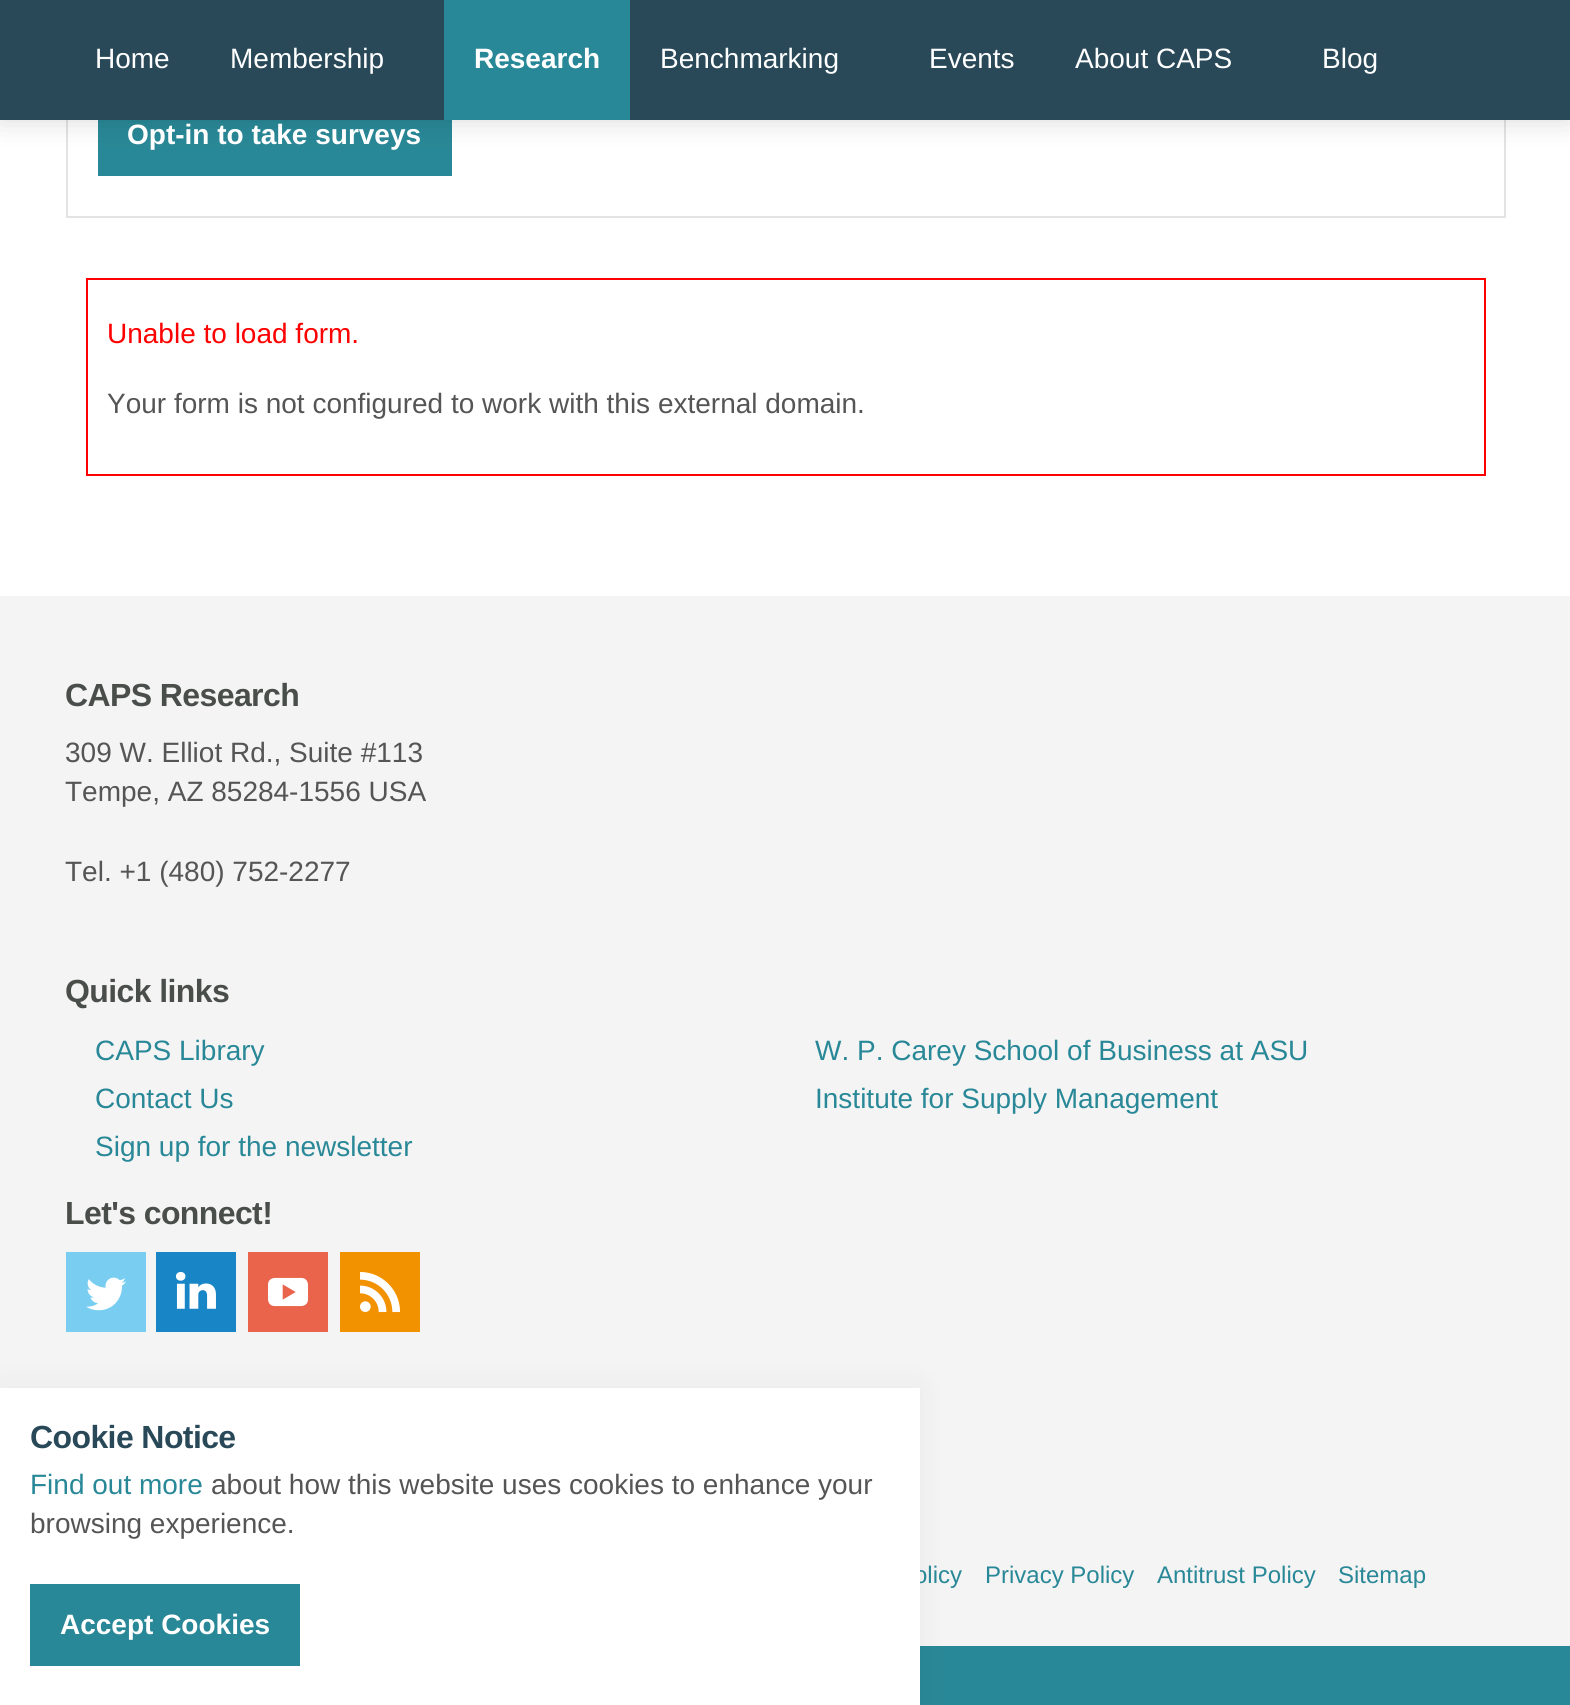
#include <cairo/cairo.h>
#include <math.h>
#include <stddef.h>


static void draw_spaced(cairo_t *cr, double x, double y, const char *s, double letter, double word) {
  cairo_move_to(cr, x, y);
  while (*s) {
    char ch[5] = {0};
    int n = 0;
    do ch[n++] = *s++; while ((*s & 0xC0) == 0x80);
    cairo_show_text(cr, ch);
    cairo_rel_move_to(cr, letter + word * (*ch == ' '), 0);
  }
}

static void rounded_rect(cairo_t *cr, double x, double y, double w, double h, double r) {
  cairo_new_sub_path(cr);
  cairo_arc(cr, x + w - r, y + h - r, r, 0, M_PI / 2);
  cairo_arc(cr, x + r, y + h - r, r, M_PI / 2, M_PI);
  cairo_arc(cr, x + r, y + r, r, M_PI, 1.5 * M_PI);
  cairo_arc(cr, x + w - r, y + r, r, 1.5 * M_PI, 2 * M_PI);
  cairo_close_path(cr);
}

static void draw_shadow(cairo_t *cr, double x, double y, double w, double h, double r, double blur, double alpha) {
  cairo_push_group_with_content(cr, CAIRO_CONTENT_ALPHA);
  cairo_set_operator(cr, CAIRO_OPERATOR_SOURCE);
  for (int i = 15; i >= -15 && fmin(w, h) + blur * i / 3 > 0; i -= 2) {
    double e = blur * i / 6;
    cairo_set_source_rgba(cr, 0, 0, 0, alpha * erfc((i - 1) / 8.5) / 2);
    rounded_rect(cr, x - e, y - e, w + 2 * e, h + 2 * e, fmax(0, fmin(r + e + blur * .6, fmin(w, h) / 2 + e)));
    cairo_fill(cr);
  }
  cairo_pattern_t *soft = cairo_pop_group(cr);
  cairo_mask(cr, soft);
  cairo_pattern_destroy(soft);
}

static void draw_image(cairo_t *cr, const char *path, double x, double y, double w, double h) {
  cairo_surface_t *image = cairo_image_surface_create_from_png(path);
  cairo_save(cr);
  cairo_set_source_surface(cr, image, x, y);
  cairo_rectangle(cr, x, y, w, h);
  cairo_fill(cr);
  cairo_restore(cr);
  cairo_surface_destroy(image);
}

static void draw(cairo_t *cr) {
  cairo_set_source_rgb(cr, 1, 1, 1);
  cairo_paint(cr);
  cairo_rectangle(cr, 67, -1, 1438, 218);
  cairo_set_source_rgb(cr, 227 / 255.0, 227 / 255.0, 227 / 255.0);
  cairo_stroke(cr);
  cairo_set_source_rgb(cr, 41 / 255.0, 136 / 255.0, 151 / 255.0);
  cairo_rectangle(cr, 98, 120, 354, 56);
  cairo_fill(cr);
  cairo_set_source_rgb(cr, 0, 0, 0);
  draw_shadow(cr, 0, -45, 1570, 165, 0, 15, 0.15);
  cairo_set_source_rgb(cr, 41 / 255.0, 73 / 255.0, 89 / 255.0);
  cairo_rectangle(cr, 0, 0, 1570, 120);
  cairo_fill(cr);
  cairo_set_source_rgb(cr, 41 / 255.0, 136 / 255.0, 151 / 255.0);
  cairo_rectangle(cr, 444, 0, 186, 120);
  cairo_fill(cr);
  cairo_rectangle(cr, 87, 279, 1398, 196);
  cairo_set_source_rgb(cr, 1, 0, 0);
  cairo_stroke(cr);
  cairo_set_source_rgb(cr, 244 / 255.0, 244 / 255.0, 244 / 255.0);
  cairo_rectangle(cr, 0, 596, 1570, 1050);
  cairo_fill(cr);
  draw_image(cr, "images/1.png", 66, 1252, 80, 80);
  draw_image(cr, "images/2.png", 156, 1252, 80, 80);
  draw_image(cr, "images/3.png", 248, 1252, 80, 80);
  draw_image(cr, "images/4.png", 340, 1252, 80, 80);
  cairo_set_source_rgb(cr, 41 / 255.0, 136 / 255.0, 151 / 255.0);
  cairo_rectangle(cr, 920, 1646, 650, 59);
  cairo_fill(cr);
  cairo_set_source_rgb(cr, 0, 0, 0);
  draw_shadow(cr, 0, 1388, 920, 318, 0, 15, 0.05);
  cairo_select_font_face(cr, "Liberation Sans", CAIRO_FONT_SLANT_NORMAL, CAIRO_FONT_WEIGHT_NORMAL);
  cairo_set_font_size(cr, 28);
  cairo_set_source_rgb(cr, 1, 1, 1);
  cairo_move_to(cr, 95, 68);
  cairo_show_text(cr, "Home");
  cairo_move_to(cr, 230, 68);
  cairo_show_text(cr, "Membership");
  cairo_select_font_face(cr, "Liberation Sans", CAIRO_FONT_SLANT_NORMAL, CAIRO_FONT_WEIGHT_BOLD);
  cairo_move_to(cr, 474, 68);
  cairo_show_text(cr, "Research");
  cairo_select_font_face(cr, "Liberation Sans", CAIRO_FONT_SLANT_NORMAL, CAIRO_FONT_WEIGHT_NORMAL);
  cairo_move_to(cr, 660, 68);
  cairo_show_text(cr, "Benchmarking");
  cairo_move_to(cr, 929, 68);
  cairo_show_text(cr, "Events");
  cairo_move_to(cr, 1075, 68);
  cairo_show_text(cr, "About CAPS");
  cairo_move_to(cr, 1322, 68);
  cairo_show_text(cr, "Blog");
  cairo_select_font_face(cr, "Liberation Sans", CAIRO_FONT_SLANT_NORMAL, CAIRO_FONT_WEIGHT_BOLD);
  cairo_move_to(cr, 127, 144);
  cairo_show_text(cr, "Opt-in to take surveys");
  cairo_select_font_face(cr, "Liberation Sans", CAIRO_FONT_SLANT_NORMAL, CAIRO_FONT_WEIGHT_NORMAL);
  cairo_set_source_rgb(cr, 1, 0, 0);
  cairo_move_to(cr, 107, 343);
  cairo_show_text(cr, "Unable to load form.");
  cairo_set_source_rgb(cr, 85 / 255.0, 85 / 255.0, 85 / 255.0);
  cairo_move_to(cr, 107, 413);
  cairo_show_text(cr, "Your form is not configured to work with this external domain.");
  cairo_select_font_face(cr, "Liberation Sans", CAIRO_FONT_SLANT_NORMAL, CAIRO_FONT_WEIGHT_BOLD);
  cairo_set_font_size(cr, 32);
  cairo_set_source_rgb(cr, 74 / 255.0, 78 / 255.0, 75 / 255.0);
  draw_spaced(cr, 65, 706, "CAPS Research", -0.6, 0);
  cairo_select_font_face(cr, "Liberation Sans", CAIRO_FONT_SLANT_NORMAL, CAIRO_FONT_WEIGHT_NORMAL);
  cairo_set_font_size(cr, 28);
  cairo_set_source_rgb(cr, 85 / 255.0, 85 / 255.0, 85 / 255.0);
  cairo_move_to(cr, 65, 762);
  cairo_show_text(cr, "309 W. Elliot Rd., Suite #113");
  cairo_move_to(cr, 65, 801);
  cairo_show_text(cr, "Tempe, AZ 85284-1556 USA");
  cairo_move_to(cr, 65, 881);
  cairo_show_text(cr, "Tel. +1 (480) 752-2277");
  cairo_select_font_face(cr, "Liberation Sans", CAIRO_FONT_SLANT_NORMAL, CAIRO_FONT_WEIGHT_BOLD);
  cairo_set_font_size(cr, 32);
  cairo_set_source_rgb(cr, 74 / 255.0, 78 / 255.0, 75 / 255.0);
  draw_spaced(cr, 65, 1002, "Quick links", -0.6, 0);
  cairo_select_font_face(cr, "Liberation Sans", CAIRO_FONT_SLANT_NORMAL, CAIRO_FONT_WEIGHT_NORMAL);
  cairo_set_font_size(cr, 28);
  cairo_set_source_rgb(cr, 41 / 255.0, 136 / 255.0, 151 / 255.0);
  cairo_move_to(cr, 95, 1060);
  cairo_show_text(cr, "CAPS Library");
  cairo_move_to(cr, 815, 1060);
  cairo_show_text(cr, "W. P. Carey School of Business at ASU");
  cairo_move_to(cr, 95, 1108);
  cairo_show_text(cr, "Contact Us");
  cairo_move_to(cr, 815, 1108);
  cairo_show_text(cr, "Institute for Supply Management");
  cairo_move_to(cr, 95, 1156);
  cairo_show_text(cr, "Sign up for the newsletter");
  cairo_select_font_face(cr, "Liberation Sans", CAIRO_FONT_SLANT_NORMAL, CAIRO_FONT_WEIGHT_BOLD);
  cairo_set_font_size(cr, 32);
  cairo_set_source_rgb(cr, 74 / 255.0, 78 / 255.0, 75 / 255.0);
  draw_spaced(cr, 65, 1224, "Let's connect!", -0.6, 0);
  cairo_select_font_face(cr, "Liberation Sans", CAIRO_FONT_SLANT_NORMAL, CAIRO_FONT_WEIGHT_NORMAL);
  cairo_set_font_size(cr, 24);
  cairo_set_source_rgb(cr, 41 / 255.0, 136 / 255.0, 151 / 255.0);
  cairo_move_to(cr, 914, 1583);
  cairo_show_text(cr, "olicy");
  cairo_move_to(cr, 985, 1583);
  cairo_show_text(cr, "Privacy Policy");
  cairo_move_to(cr, 1157, 1583);
  cairo_show_text(cr, "Antitrust Policy");
  cairo_move_to(cr, 1338, 1583);
  cairo_show_text(cr, "Sitemap");
  cairo_set_source_rgb(cr, 1, 1, 1);
  cairo_rectangle(cr, 0, 1388, 920, 317);
  cairo_fill(cr);
  cairo_select_font_face(cr, "Liberation Sans", CAIRO_FONT_SLANT_NORMAL, CAIRO_FONT_WEIGHT_BOLD);
  cairo_set_font_size(cr, 32);
  cairo_set_source_rgb(cr, 41 / 255.0, 73 / 255.0, 89 / 255.0);
  draw_spaced(cr, 30, 1448, "Cookie Notice", -0.6, 0);
  cairo_select_font_face(cr, "Liberation Sans", CAIRO_FONT_SLANT_NORMAL, CAIRO_FONT_WEIGHT_NORMAL);
  cairo_set_font_size(cr, 28);
  cairo_set_source_rgb(cr, 41 / 255.0, 136 / 255.0, 151 / 255.0);
  cairo_move_to(cr, 30, 1494);
  cairo_show_text(cr, "Find out more");
  cairo_set_source_rgb(cr, 85 / 255.0, 85 / 255.0, 85 / 255.0);
  cairo_move_to(cr, 211, 1494);
  cairo_show_text(cr, "about how this website uses cookies to enhance your");
  cairo_move_to(cr, 30, 1533);
  cairo_show_text(cr, "browsing experience.");
  cairo_set_source_rgb(cr, 41 / 255.0, 136 / 255.0, 151 / 255.0);
  cairo_rectangle(cr, 30, 1584, 270, 82);
  cairo_fill(cr);
  cairo_select_font_face(cr, "Liberation Sans", CAIRO_FONT_SLANT_NORMAL, CAIRO_FONT_WEIGHT_BOLD);
  cairo_set_source_rgb(cr, 1, 1, 1);
  cairo_move_to(cr, 60, 1634);
  cairo_show_text(cr, "Accept Cookies");
}

int main(void) {
  cairo_surface_t *surface = cairo_image_surface_create(CAIRO_FORMAT_RGB24, 1570, 1705);
  cairo_t *cr = cairo_create(surface);
  cairo_font_options_t *options = cairo_font_options_create();
  cairo_font_options_set_hint_metrics(options, CAIRO_HINT_METRICS_OFF);
  cairo_font_options_set_hint_style(options, CAIRO_HINT_STYLE_NONE);
  cairo_set_font_options(cr, options);
  cairo_set_miter_limit(cr, 4);
  draw(cr);
  cairo_surface_write_to_png(surface, "out.png");
  cairo_font_options_destroy(options);
  cairo_destroy(cr);
  cairo_surface_destroy(surface);
  return 0;
}
